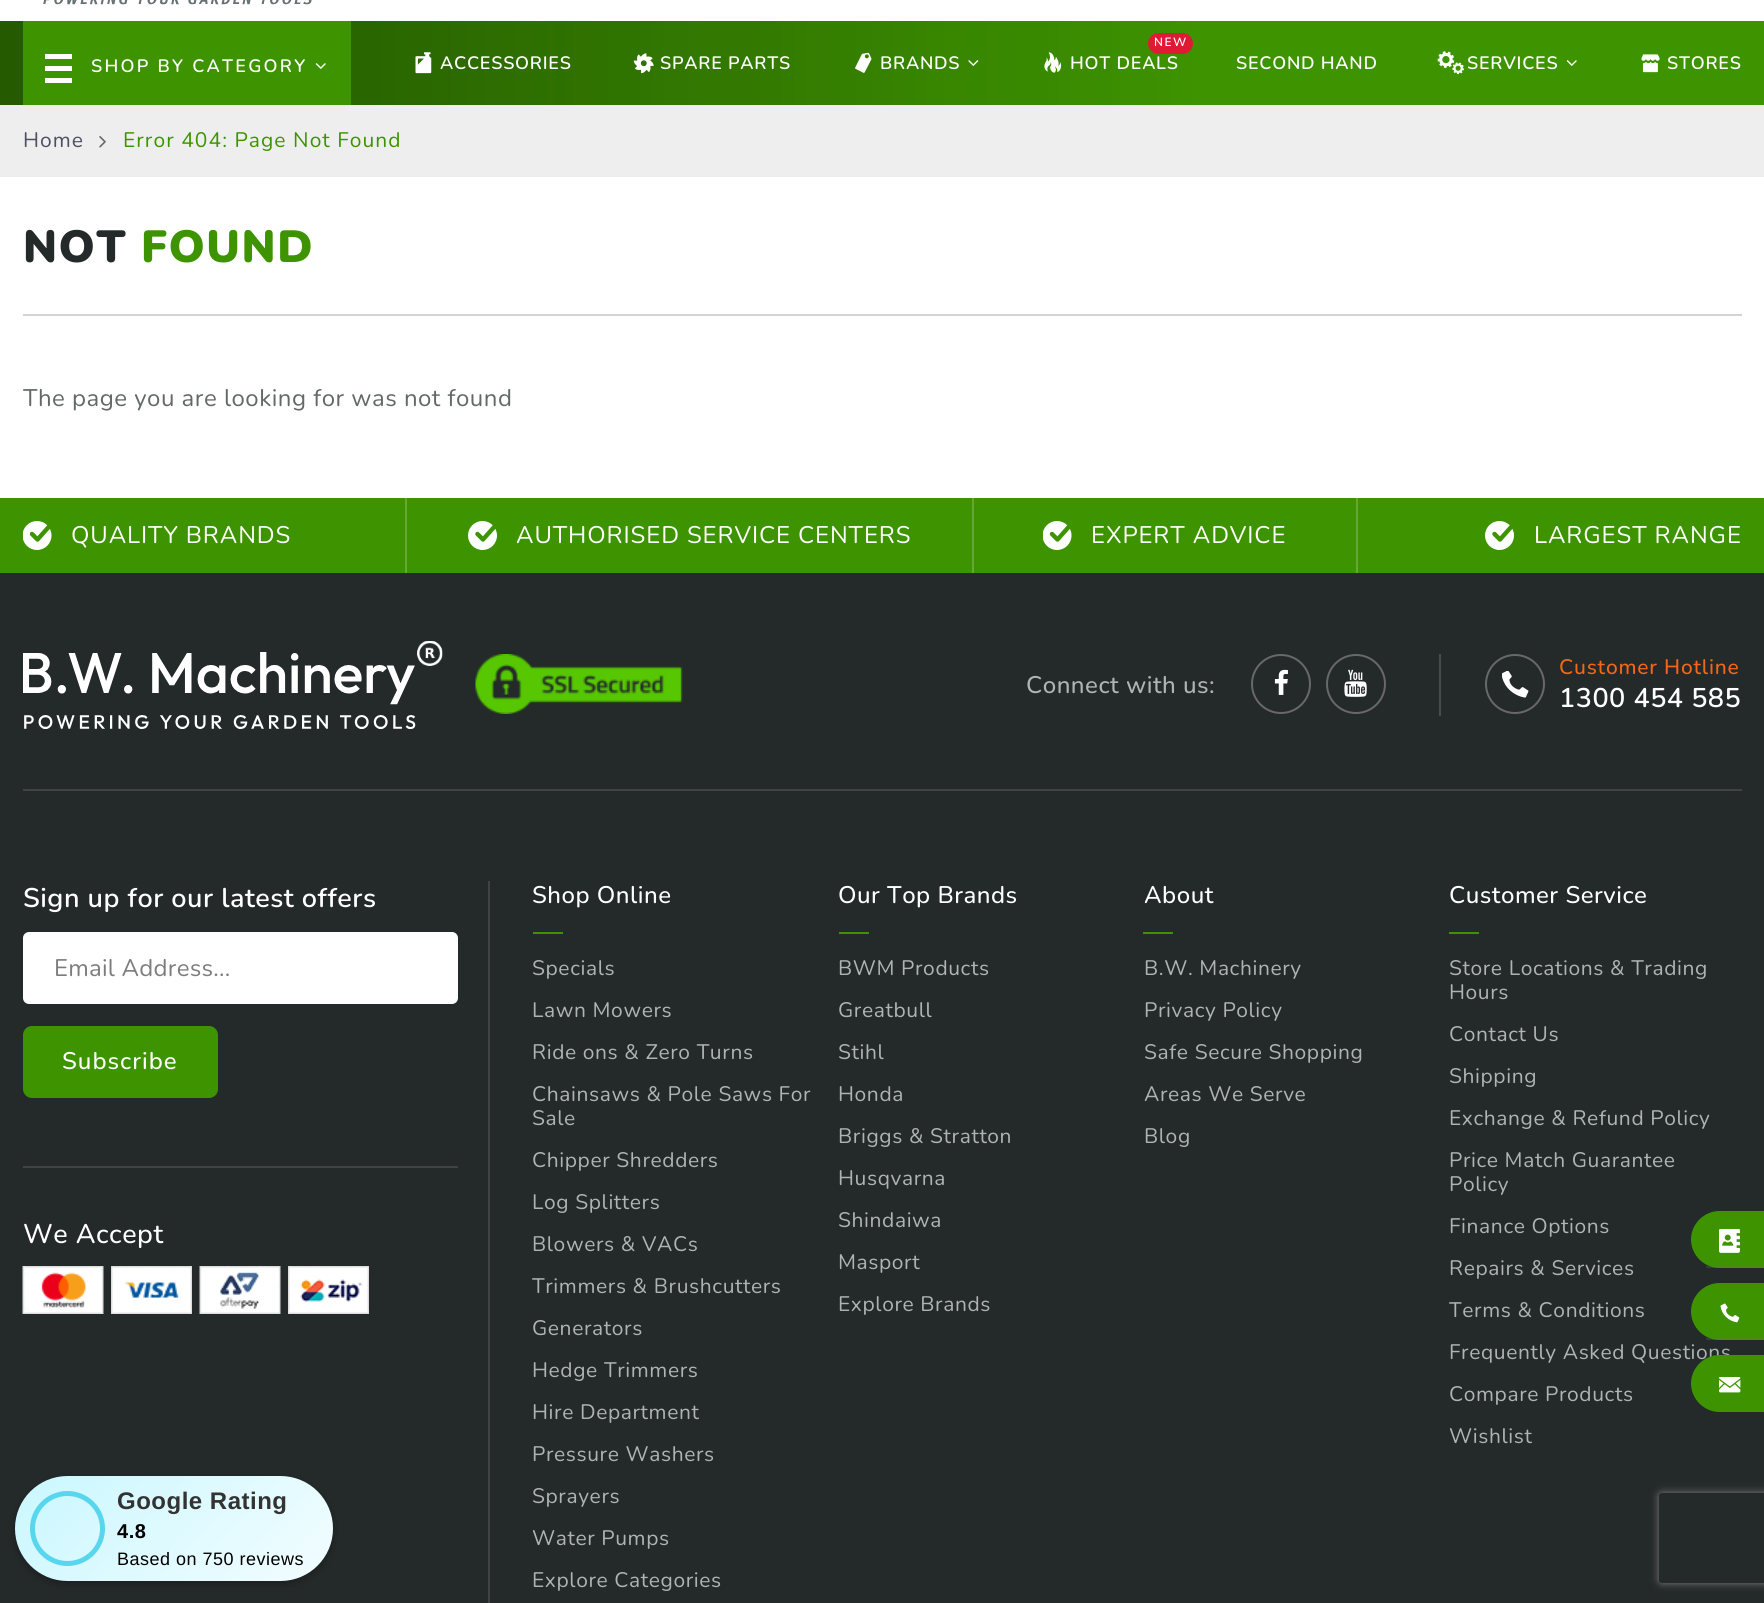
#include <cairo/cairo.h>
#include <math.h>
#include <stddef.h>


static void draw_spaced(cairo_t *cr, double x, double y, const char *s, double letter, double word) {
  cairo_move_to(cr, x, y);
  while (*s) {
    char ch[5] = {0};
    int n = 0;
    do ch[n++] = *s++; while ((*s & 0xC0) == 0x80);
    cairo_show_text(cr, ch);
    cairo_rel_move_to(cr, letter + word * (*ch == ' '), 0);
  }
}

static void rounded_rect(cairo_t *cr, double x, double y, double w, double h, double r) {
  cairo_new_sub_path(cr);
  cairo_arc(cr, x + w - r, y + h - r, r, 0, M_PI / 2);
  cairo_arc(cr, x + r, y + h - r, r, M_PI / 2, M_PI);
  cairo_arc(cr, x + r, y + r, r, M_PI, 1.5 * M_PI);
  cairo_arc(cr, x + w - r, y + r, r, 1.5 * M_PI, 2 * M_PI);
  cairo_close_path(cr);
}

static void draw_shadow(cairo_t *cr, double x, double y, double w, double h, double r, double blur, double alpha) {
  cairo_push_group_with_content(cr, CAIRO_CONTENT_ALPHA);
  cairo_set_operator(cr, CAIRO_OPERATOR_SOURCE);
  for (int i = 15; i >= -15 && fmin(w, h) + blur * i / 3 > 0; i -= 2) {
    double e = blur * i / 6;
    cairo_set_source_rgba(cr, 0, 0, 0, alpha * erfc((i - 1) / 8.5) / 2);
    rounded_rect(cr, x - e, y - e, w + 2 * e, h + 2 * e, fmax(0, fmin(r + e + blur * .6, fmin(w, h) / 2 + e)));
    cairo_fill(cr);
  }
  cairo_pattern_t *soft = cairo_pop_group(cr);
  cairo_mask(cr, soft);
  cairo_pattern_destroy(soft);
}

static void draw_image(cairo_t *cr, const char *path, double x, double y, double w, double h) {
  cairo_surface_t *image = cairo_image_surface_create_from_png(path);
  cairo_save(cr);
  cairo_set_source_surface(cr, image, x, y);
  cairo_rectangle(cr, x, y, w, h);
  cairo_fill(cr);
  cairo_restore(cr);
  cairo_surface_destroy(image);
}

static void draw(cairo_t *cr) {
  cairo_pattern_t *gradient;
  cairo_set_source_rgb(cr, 1, 1, 1);
  cairo_paint(cr);
  draw_image(cr, "images/1.png", 43, 0, 269, 5);
  gradient = cairo_pattern_create_linear(0, 63, 1764, 63);
  cairo_pattern_add_color_stop_rgba(gradient, 0, 37 / 255.0, 90 / 255.0, 0, 1);
  cairo_pattern_add_color_stop_rgba(gradient, 0.09, 36 / 255.0, 91 / 255.0, 0, 1);
  cairo_pattern_add_color_stop_rgba(gradient, 0.19, 43 / 255.0, 101 / 255.0, 1 / 255.0, 1);
  cairo_pattern_add_color_stop_rgba(gradient, 0.21, 41 / 255.0, 102 / 255.0, 0, 1);
  cairo_pattern_add_color_stop_rgba(gradient, 0.3, 47 / 255.0, 111 / 255.0, 1 / 255.0, 1);
  cairo_pattern_add_color_stop_rgba(gradient, 0.31, 45 / 255.0, 112 / 255.0, 0, 1);
  cairo_pattern_add_color_stop_rgba(gradient, 0.31, 48 / 255.0, 112 / 255.0, 0, 1);
  cairo_pattern_add_color_stop_rgba(gradient, 0.31, 45 / 255.0, 112 / 255.0, 0, 1);
  cairo_pattern_add_color_stop_rgba(gradient, 0.31, 48 / 255.0, 112 / 255.0, 0, 1);
  cairo_pattern_add_color_stop_rgba(gradient, 0.32, 45 / 255.0, 112 / 255.0, 0, 1);
  cairo_pattern_add_color_stop_rgba(gradient, 0.32, 48 / 255.0, 112 / 255.0, 0, 1);
  cairo_pattern_add_color_stop_rgba(gradient, 0.36, 47 / 255.0, 116 / 255.0, 0, 1);
  cairo_pattern_add_color_stop_rgba(gradient, 0.38, 50 / 255.0, 119 / 255.0, 2 / 255.0, 1);
  cairo_pattern_add_color_stop_rgba(gradient, 0.44, 51 / 255.0, 122 / 255.0, 0, 1);
  cairo_pattern_add_color_stop_rgba(gradient, 0.46, 54 / 255.0, 126 / 255.0, 1 / 255.0, 1);
  cairo_pattern_add_color_stop_rgba(gradient, 0.48, 52 / 255.0, 127 / 255.0, 0, 1);
  cairo_pattern_add_color_stop_rgba(gradient, 0.51, 55 / 255.0, 130 / 255.0, 1 / 255.0, 1);
  cairo_pattern_add_color_stop_rgba(gradient, 0.52, 52 / 255.0, 132 / 255.0, 0, 1);
  cairo_pattern_add_color_stop_rgba(gradient, 0.52, 55 / 255.0, 131 / 255.0, 0, 1);
  cairo_pattern_add_color_stop_rgba(gradient, 0.52, 52 / 255.0, 132 / 255.0, 0, 1);
  cairo_pattern_add_color_stop_rgba(gradient, 0.52, 56 / 255.0, 132 / 255.0, 0, 1);
  cairo_pattern_add_color_stop_rgba(gradient, 0.55, 57 / 255.0, 135 / 255.0, 0, 1);
  cairo_pattern_add_color_stop_rgba(gradient, 0.55, 54 / 255.0, 136 / 255.0, 0, 1);
  cairo_pattern_add_color_stop_rgba(gradient, 0.56, 57 / 255.0, 135 / 255.0, 0, 1);
  cairo_pattern_add_color_stop_rgba(gradient, 0.56, 54 / 255.0, 136 / 255.0, 0, 1);
  cairo_pattern_add_color_stop_rgba(gradient, 0.56, 58 / 255.0, 136 / 255.0, 1 / 255.0, 1);
  cairo_pattern_add_color_stop_rgba(gradient, 0.59, 56 / 255.0, 137 / 255.0, 0, 1);
  cairo_pattern_add_color_stop_rgba(gradient, 0.61, 59 / 255.0, 140 / 255.0, 1 / 255.0, 1);
  cairo_pattern_add_color_stop_rgba(gradient, 0.63, 58 / 255.0, 141 / 255.0, 0, 1);
  cairo_pattern_add_color_stop_rgba(gradient, 0.63, 62 / 255.0, 141 / 255.0, 0, 1);
  cairo_pattern_add_color_stop_rgba(gradient, 0.63, 59 / 255.0, 142 / 255.0, 0, 1);
  cairo_pattern_add_color_stop_rgba(gradient, 0.68, 62 / 255.0, 147 / 255.0, 0, 1);
  cairo_pattern_add_color_stop_rgba(gradient, 1, 62 / 255.0, 147 / 255.0, 0, 1);
  cairo_set_source(cr, gradient);
  cairo_pattern_destroy(gradient);
  cairo_rectangle(cr, 0, 21, 1764, 84);
  cairo_fill(cr);
  cairo_set_source_rgb(cr, 62 / 255.0, 148 / 255.0, 0);
  cairo_rectangle(cr, 23, 21, 328, 84);
  cairo_fill(cr);
  cairo_set_source_rgb(cr, 1, 1, 1);
  cairo_rectangle(cr, 45, 54, 27, 5);
  cairo_fill(cr);
  cairo_rectangle(cr, 45, 66, 27, 5);
  cairo_fill(cr);
  cairo_rectangle(cr, 45, 78, 27, 5);
  cairo_fill(cr);
  draw_image(cr, "images/2.png", 315, 63, 11, 6);
  draw_image(cr, "images/3.png", 415, 52, 17, 22);
  draw_image(cr, "images/4.png", 633, 53, 21, 21);
  draw_image(cr, "images/5.png", 855, 52, 17, 21);
  draw_image(cr, "images/6.png", 968, 60, 11, 6);
  cairo_set_source_rgb(cr, 223 / 255.0, 26 / 255.0, 53 / 255.0);
  rounded_rect(cr, 1148, 33, 45, 21, 10.5);
  cairo_fill(cr);
  draw_image(cr, "images/7.png", 1044, 52, 18, 21);
  draw_image(cr, "images/8.png", 1437, 51, 28, 24);
  draw_image(cr, "images/9.png", 1566, 60, 11, 6);
  draw_image(cr, "images/10.png", 1641, 54, 19, 19);
  cairo_set_source_rgb(cr, 238 / 255.0, 238 / 255.0, 238 / 255.0);
  cairo_rectangle(cr, 0, 105, 1764, 72);
  cairo_fill(cr);
  draw_image(cr, "images/11.png", 99, 136, 7, 12);
  cairo_set_source_rgb(cr, 212 / 255.0, 212 / 255.0, 212 / 255.0);
  cairo_rectangle(cr, 23, 314, 1719, 2);
  cairo_fill(cr);
  cairo_set_source_rgb(cr, 62 / 255.0, 148 / 255.0, 0);
  cairo_rectangle(cr, 0, 498, 1764, 75);
  cairo_fill(cr);
  cairo_set_source_rgb(cr, 101 / 255.0, 169 / 255.0, 51 / 255.0);
  cairo_rectangle(cr, 405, 498, 2, 75);
  cairo_fill(cr);
  cairo_save(cr);
  cairo_rectangle(cr, 23, 521, 30, 30);
  cairo_clip(cr);
  cairo_set_source_rgb(cr, 1, 1, 1);
  cairo_arc(cr, 37, 535.5, 14.5, 0, 2 * M_PI);
  cairo_fill(cr);
  cairo_restore(cr);
  cairo_new_path(cr);
  cairo_move_to(cr, 32, 534);
  cairo_line_to(cr, 37.5, 539.5);
  cairo_line_to(cr, 49.5, 526);
  cairo_set_source_rgb(cr, 62 / 255.0, 148 / 255.0, 0);
  cairo_set_line_width(cr, 4.4);
  cairo_set_line_cap(cr, CAIRO_LINE_CAP_ROUND);
  cairo_set_line_join(cr, CAIRO_LINE_JOIN_ROUND);
  cairo_stroke(cr);
  cairo_set_source_rgb(cr, 101 / 255.0, 169 / 255.0, 51 / 255.0);
  cairo_rectangle(cr, 972, 498, 2, 75);
  cairo_fill(cr);
  cairo_set_source_rgb(cr, 1, 1, 1);
  cairo_arc(cr, 482.5, 535.5, 14.5, 0, 2 * M_PI);
  cairo_fill(cr);
  cairo_new_path(cr);
  cairo_move_to(cr, 477.5, 534);
  cairo_line_to(cr, 483, 539.5);
  cairo_line_to(cr, 495, 526);
  cairo_set_source_rgb(cr, 62 / 255.0, 148 / 255.0, 0);
  cairo_stroke(cr);
  cairo_set_source_rgb(cr, 101 / 255.0, 169 / 255.0, 51 / 255.0);
  cairo_rectangle(cr, 1356, 498, 2, 75);
  cairo_fill(cr);
  cairo_save(cr);
  cairo_rectangle(cr, 1043, 521, 30, 30);
  cairo_clip(cr);
  cairo_set_source_rgb(cr, 1, 1, 1);
  cairo_arc(cr, 1057, 535.5, 14.5, 0, 2 * M_PI);
  cairo_fill(cr);
  cairo_restore(cr);
  cairo_new_path(cr);
  cairo_move_to(cr, 1052, 534);
  cairo_line_to(cr, 1057.5, 539.5);
  cairo_line_to(cr, 1069.5, 526);
  cairo_set_source_rgb(cr, 62 / 255.0, 148 / 255.0, 0);
  cairo_stroke(cr);
  cairo_set_source_rgb(cr, 1, 1, 1);
  cairo_arc(cr, 1499.5, 535.5, 14.5, 0, 2 * M_PI);
  cairo_fill(cr);
  cairo_new_path(cr);
  cairo_move_to(cr, 1494.5, 534);
  cairo_line_to(cr, 1500, 539.5);
  cairo_line_to(cr, 1512, 526);
  cairo_set_source_rgb(cr, 62 / 255.0, 148 / 255.0, 0);
  cairo_stroke(cr);
  cairo_set_source_rgb(cr, 36 / 255.0, 41 / 255.0, 41 / 255.0);
  cairo_rectangle(cr, 0, 573, 1764, 1030);
  cairo_fill(cr);
  cairo_set_source_rgb(cr, 64 / 255.0, 67 / 255.0, 67 / 255.0);
  cairo_rectangle(cr, 23, 789, 1719, 2);
  cairo_fill(cr);
  draw_image(cr, "images/12.png", 23, 641, 420, 88);
  draw_image(cr, "images/13.png", 475, 654, 208, 60);
  cairo_arc(cr, 1281, 684, 29, 0, 2 * M_PI);
  cairo_set_source_rgb(cr, 104 / 255.0, 104 / 255.0, 104 / 255.0);
  cairo_set_line_width(cr, 2);
  cairo_set_line_cap(cr, CAIRO_LINE_CAP_BUTT);
  cairo_set_line_join(cr, CAIRO_LINE_JOIN_MITER);
  cairo_stroke(cr);
  draw_image(cr, "images/14.png", 1274, 669, 14, 26);
  cairo_arc(cr, 1356, 684, 29, 0, 2 * M_PI);
  cairo_stroke(cr);
  draw_image(cr, "images/15.png", 1344, 669, 23, 28);
  cairo_set_source_rgb(cr, 72 / 255.0, 76 / 255.0, 76 / 255.0);
  cairo_rectangle(cr, 1439, 654, 2, 62);
  cairo_fill(cr);
  cairo_arc(cr, 1515, 684, 29, 0, 2 * M_PI);
  cairo_set_source_rgb(cr, 104 / 255.0, 104 / 255.0, 104 / 255.0);
  cairo_stroke(cr);
  draw_image(cr, "images/16.png", 1502, 671, 27, 27);
  cairo_set_source_rgb(cr, 64 / 255.0, 67 / 255.0, 67 / 255.0);
  cairo_rectangle(cr, 488, 881, 2, 722);
  cairo_fill(cr);
  cairo_rectangle(cr, 23, 1166, 435, 2);
  cairo_fill(cr);
  cairo_set_source_rgb(cr, 1, 1, 1);
  rounded_rect(cr, 23, 932, 435, 72, 6);
  cairo_fill(cr);
  cairo_set_source_rgb(cr, 62 / 255.0, 148 / 255.0, 0);
  rounded_rect(cr, 23, 1026, 195, 72, 9);
  cairo_fill(cr);
  draw_image(cr, "images/17.png", 22, 1266, 82, 48);
  draw_image(cr, "images/18.png", 111, 1266, 81, 48);
  draw_image(cr, "images/19.png", 199, 1266, 82, 48);
  draw_image(cr, "images/20.png", 288, 1266, 81, 48);
  cairo_rectangle(cr, 533, 932, 30, 2);
  cairo_fill(cr);
  cairo_rectangle(cr, 839, 932, 30, 2);
  cairo_fill(cr);
  cairo_rectangle(cr, 1143, 932, 30, 2);
  cairo_fill(cr);
  cairo_rectangle(cr, 1449, 932, 30, 2);
  cairo_fill(cr);
  cairo_new_path(cr);
  cairo_move_to(cr, 1719.5, 1211);
  cairo_line_to(cr, 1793, 1211);
  cairo_line_to(cr, 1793, 1268);
  cairo_line_to(cr, 1719.5, 1268);
  cairo_curve_to(cr, 1704, 1268, 1691, 1255, 1691, 1239.5);
  cairo_curve_to(cr, 1691, 1224, 1704, 1211, 1719.5, 1211);
  cairo_close_path(cr);
  cairo_fill(cr);
  cairo_set_source_rgba(cr, 104 / 255.0, 104 / 255.0, 104 / 255.0, 0.3);
  cairo_rectangle(cr, 1706, 1266, 58, 2);
  cairo_fill(cr);
  draw_image(cr, "images/21.png", 1719, 1229, 21, 24);
  cairo_set_source_rgb(cr, 62 / 255.0, 148 / 255.0, 0);
  cairo_new_path(cr);
  cairo_move_to(cr, 1719.5, 1283);
  cairo_line_to(cr, 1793, 1283);
  cairo_line_to(cr, 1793, 1340);
  cairo_line_to(cr, 1719.5, 1340);
  cairo_curve_to(cr, 1704, 1340, 1691, 1327, 1691, 1311.5);
  cairo_curve_to(cr, 1691, 1296, 1704, 1283, 1719.5, 1283);
  cairo_close_path(cr);
  cairo_fill(cr);
  cairo_set_source_rgba(cr, 104 / 255.0, 104 / 255.0, 104 / 255.0, 0.3);
  cairo_rectangle(cr, 1706, 1338, 58, 2);
  cairo_fill(cr);
  draw_image(cr, "images/22.png", 1720, 1303, 20, 20);
  cairo_set_source_rgb(cr, 0, 0, 0);
  draw_shadow(cr, 15, 1479, 318, 105, 52.5, 4, 0.26);
  gradient = cairo_pattern_create_linear(1074, 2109, 228, 1263);
  cairo_pattern_add_color_stop_rgba(gradient, 0, 1, 1, 1, 1);
  cairo_pattern_add_color_stop_rgba(gradient, 0.33, 202 / 255.0, 247 / 255.0, 1, 1);
  cairo_pattern_add_color_stop_rgba(gradient, 0.67, 1, 1, 1, 1);
  cairo_pattern_add_color_stop_rgba(gradient, 1, 202 / 255.0, 247 / 255.0, 1, 1);
  cairo_set_source(cr, gradient);
  cairo_pattern_destroy(gradient);
  rounded_rect(cr, 15, 1476, 318, 105, 52.5);
  cairo_fill(cr);
  cairo_arc(cr, 67.5, 1528.5, 35, 0, 2 * M_PI);
  cairo_set_source_rgb(cr, 87 / 255.0, 214 / 255.0, 237 / 255.0);
  cairo_set_line_width(cr, 5);
  cairo_stroke(cr);
  cairo_save(cr);
  cairo_set_fill_rule(cr, CAIRO_FILL_RULE_EVEN_ODD);
  cairo_new_path(cr);
  cairo_move_to(cr, 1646, 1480);
  cairo_line_to(cr, 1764, 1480);
  cairo_line_to(cr, 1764, 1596);
  cairo_line_to(cr, 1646, 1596);
  cairo_close_path(cr);
  cairo_move_to(cr, 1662, 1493);
  cairo_line_to(cr, 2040, 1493);
  cairo_curve_to(cr, 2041.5, 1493, 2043, 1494.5, 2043, 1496);
  cairo_line_to(cr, 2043, 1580);
  cairo_curve_to(cr, 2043, 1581.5, 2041.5, 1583, 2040, 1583);
  cairo_line_to(cr, 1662, 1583);
  cairo_curve_to(cr, 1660.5, 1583, 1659, 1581.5, 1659, 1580);
  cairo_line_to(cr, 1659, 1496);
  cairo_curve_to(cr, 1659, 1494.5, 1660.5, 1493, 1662, 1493);
  cairo_close_path(cr);
  cairo_clip(cr);
  cairo_set_source_rgb(cr, 128 / 255.0, 128 / 255.0, 128 / 255.0);
  draw_shadow(cr, 1659, 1493, 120, 90, 3, 4, 1);
  cairo_restore(cr);
  cairo_select_font_face(cr, "Nunito SemiBold", CAIRO_FONT_SLANT_NORMAL, CAIRO_FONT_WEIGHT_NORMAL);
  cairo_set_font_size(cr, 18);
  cairo_set_source_rgb(cr, 1, 1, 1);
  draw_spaced(cr, 91, 72, "SHOP BY CATEGORY", 2.25, 0);
  draw_spaced(cr, 440, 69, "ACCESSORIES", 0.75, 0);
  draw_spaced(cr, 660, 69, "SPARE PARTS", 0.75, 0);
  draw_spaced(cr, 880, 69, "BRANDS", 0.75, 0);
  cairo_set_font_size(cr, 12);
  draw_spaced(cr, 1154, 46, "NEW", 1.5, 0);
  cairo_set_font_size(cr, 18);
  draw_spaced(cr, 1070, 69, "HOT DEALS", 0.75, 0);
  draw_spaced(cr, 1236, 69, "SECOND HAND", 0.75, 0);
  draw_spaced(cr, 1467, 69, "SERVICES", 0.75, 0);
  draw_spaced(cr, 1667, 69, "STORES", 0.75, 0);
  cairo_select_font_face(cr, "Nunito", CAIRO_FONT_SLANT_NORMAL, CAIRO_FONT_WEIGHT_NORMAL);
  cairo_set_font_size(cr, 21);
  cairo_set_source_rgb(cr, 77 / 255.0, 79 / 255.0, 100 / 255.0);
  draw_spaced(cr, 23, 147, "Home", 1.05, 0);
  cairo_set_source_rgb(cr, 62 / 255.0, 148 / 255.0, 0);
  draw_spaced(cr, 123, 147, "Error 404: Page Not Found", 1.05, 0);
  cairo_select_font_face(cr, "Nunito Black", CAIRO_FONT_SLANT_NORMAL, CAIRO_FONT_WEIGHT_NORMAL);
  cairo_set_font_size(cr, 45);
  cairo_set_source_rgb(cr, 36 / 255.0, 41 / 255.0, 41 / 255.0);
  draw_spaced(cr, 23, 262, "NOT", 1.5, 0);
  cairo_set_source_rgb(cr, 62 / 255.0, 148 / 255.0, 0);
  draw_spaced(cr, 141, 262, "FOUND", 1.5, 0);
  cairo_select_font_face(cr, "Nunito", CAIRO_FONT_SLANT_NORMAL, CAIRO_FONT_WEIGHT_NORMAL);
  cairo_set_font_size(cr, 24);
  cairo_set_source_rgb(cr, 98 / 255.0, 105 / 255.0, 103 / 255.0);
  draw_spaced(cr, 23, 406, "The page you are looking for was not found", 0.5, 0);
  cairo_set_source_rgb(cr, 1, 1, 1);
  draw_spaced(cr, 71, 543, "QUALITY BRANDS", 0.9, 0);
  draw_spaced(cr, 516, 543, "AUTHORISED SERVICE CENTERS", 0.9, 0);
  draw_spaced(cr, 1091, 543, "EXPERT ADVICE", 0.9, 0);
  draw_spaced(cr, 1534, 543, "LARGEST RANGE", 0.9, 0);
  cairo_select_font_face(cr, "Nunito Medium", CAIRO_FONT_SLANT_NORMAL, CAIRO_FONT_WEIGHT_NORMAL);
  cairo_set_source_rgb(cr, 174 / 255.0, 180 / 255.0, 178 / 255.0);
  draw_spaced(cr, 1026, 693, "Connect with us:", 0.5, 0);
  cairo_set_font_size(cr, 21);
  cairo_set_source_rgb(cr, 244 / 255.0, 103 / 255.0, 23 / 255.0);
  draw_spaced(cr, 1559, 674, "Customer Hotline", 0.8, 0);
  cairo_select_font_face(cr, "Nunito SemiBold", CAIRO_FONT_SLANT_NORMAL, CAIRO_FONT_WEIGHT_NORMAL);
  cairo_set_font_size(cr, 27);
  cairo_set_source_rgb(cr, 1, 1, 1);
  draw_spaced(cr, 1559, 707, "1300 454 585", 0.5, 0);
  draw_spaced(cr, 23, 907, "Sign up for our latest offers", 0.5, 0);
  cairo_select_font_face(cr, "Nunito", CAIRO_FONT_SLANT_NORMAL, CAIRO_FONT_WEIGHT_NORMAL);
  cairo_set_font_size(cr, 24);
  cairo_set_source_rgb(cr, 125 / 255.0, 125 / 255.0, 125 / 255.0);
  draw_spaced(cr, 54, 976, "Email Address...", 0.25, 0);
  cairo_select_font_face(cr, "Nunito Medium", CAIRO_FONT_SLANT_NORMAL, CAIRO_FONT_WEIGHT_NORMAL);
  cairo_set_source_rgb(cr, 1, 1, 1);
  draw_spaced(cr, 62, 1069, "Subscribe", 1, 0);
  cairo_set_font_size(cr, 27);
  draw_spaced(cr, 23, 1243, "We Accept", 0.5, 0);
  cairo_set_font_size(cr, 24);
  draw_spaced(cr, 532, 903, "Shop Online", 0.5, 0);
  cairo_select_font_face(cr, "Nunito", CAIRO_FONT_SLANT_NORMAL, CAIRO_FONT_WEIGHT_NORMAL);
  cairo_set_font_size(cr, 21);
  cairo_set_source_rgb(cr, 174 / 255.0, 180 / 255.0, 178 / 255.0);
  draw_spaced(cr, 532, 975, "Specials", 0.6, 0);
  draw_spaced(cr, 532, 1017, "Lawn Mowers", 0.6, 0);
  draw_spaced(cr, 532, 1059, "Ride ons & Zero Turns", 0.6, 0);
  draw_spaced(cr, 532, 1101, "Chainsaws & Pole Saws For", 0.6, 0);
  draw_spaced(cr, 532, 1125, "Sale", 0.6, 0);
  draw_spaced(cr, 532, 1167, "Chipper Shredders", 0.6, 0);
  draw_spaced(cr, 532, 1209, "Log Splitters", 0.6, 0);
  draw_spaced(cr, 532, 1251, "Blowers & VACs", 0.6, 0);
  draw_spaced(cr, 532, 1293, "Trimmers & Brushcutters", 0.6, 0);
  draw_spaced(cr, 532, 1335, "Generators", 0.6, 0);
  draw_spaced(cr, 532, 1377, "Hedge Trimmers", 0.6, 0);
  draw_spaced(cr, 532, 1419, "Hire Department", 0.6, 0);
  draw_spaced(cr, 532, 1461, "Pressure Washers", 0.6, 0);
  draw_spaced(cr, 532, 1503, "Sprayers", 0.6, 0);
  draw_spaced(cr, 532, 1545, "Water Pumps", 0.6, 0);
  draw_spaced(cr, 532, 1587, "Explore Categories", 0.6, 0);
  cairo_select_font_face(cr, "Nunito Medium", CAIRO_FONT_SLANT_NORMAL, CAIRO_FONT_WEIGHT_NORMAL);
  cairo_set_font_size(cr, 24);
  cairo_set_source_rgb(cr, 1, 1, 1);
  draw_spaced(cr, 838, 903, "Our Top Brands", 0.5, 0);
  cairo_select_font_face(cr, "Nunito", CAIRO_FONT_SLANT_NORMAL, CAIRO_FONT_WEIGHT_NORMAL);
  cairo_set_font_size(cr, 21);
  cairo_set_source_rgb(cr, 174 / 255.0, 180 / 255.0, 178 / 255.0);
  draw_spaced(cr, 838, 975, "BWM Products", 0.6, 0);
  draw_spaced(cr, 838, 1017, "Greatbull", 0.6, 0);
  draw_spaced(cr, 838, 1059, "Stihl", 0.6, 0);
  draw_spaced(cr, 838, 1101, "Honda", 0.6, 0);
  draw_spaced(cr, 838, 1143, "Briggs & Stratton", 0.6, 0);
  draw_spaced(cr, 838, 1185, "Husqvarna", 0.6, 0);
  draw_spaced(cr, 838, 1227, "Shindaiwa", 0.6, 0);
  draw_spaced(cr, 838, 1269, "Masport", 0.6, 0);
  draw_spaced(cr, 838, 1311, "Explore Brands", 0.6, 0);
  cairo_select_font_face(cr, "Nunito Medium", CAIRO_FONT_SLANT_NORMAL, CAIRO_FONT_WEIGHT_NORMAL);
  cairo_set_font_size(cr, 24);
  cairo_set_source_rgb(cr, 1, 1, 1);
  draw_spaced(cr, 1144, 903, "About", 0.5, 0);
  cairo_select_font_face(cr, "Nunito", CAIRO_FONT_SLANT_NORMAL, CAIRO_FONT_WEIGHT_NORMAL);
  cairo_set_font_size(cr, 21);
  cairo_set_source_rgb(cr, 174 / 255.0, 180 / 255.0, 178 / 255.0);
  draw_spaced(cr, 1144, 975, "B.W. Machinery", 0.6, 0);
  draw_spaced(cr, 1144, 1017, "Privacy Policy", 0.6, 0);
  draw_spaced(cr, 1144, 1059, "Safe Secure Shopping", 0.6, 0);
  draw_spaced(cr, 1144, 1101, "Areas We Serve", 0.6, 0);
  draw_spaced(cr, 1144, 1143, "Blog", 0.6, 0);
  cairo_select_font_face(cr, "Nunito Medium", CAIRO_FONT_SLANT_NORMAL, CAIRO_FONT_WEIGHT_NORMAL);
  cairo_set_font_size(cr, 24);
  cairo_set_source_rgb(cr, 1, 1, 1);
  draw_spaced(cr, 1449, 903, "Customer Service", 0.5, 0);
  cairo_select_font_face(cr, "Nunito", CAIRO_FONT_SLANT_NORMAL, CAIRO_FONT_WEIGHT_NORMAL);
  cairo_set_font_size(cr, 21);
  cairo_set_source_rgb(cr, 174 / 255.0, 180 / 255.0, 178 / 255.0);
  draw_spaced(cr, 1449, 975, "Store Locations & Trading", 0.6, 0);
  draw_spaced(cr, 1449, 999, "Hours", 0.6, 0);
  draw_spaced(cr, 1449, 1041, "Contact Us", 0.6, 0);
  draw_spaced(cr, 1449, 1083, "Shipping", 0.6, 0);
  draw_spaced(cr, 1449, 1125, "Exchange & Refund Policy", 0.6, 0);
  draw_spaced(cr, 1449, 1167, "Price Match Guarantee", 0.6, 0);
  draw_spaced(cr, 1449, 1191, "Policy", 0.6, 0);
  draw_spaced(cr, 1449, 1233, "Finance Options", 0.6, 0);
  draw_spaced(cr, 1449, 1275, "Repairs & Services", 0.6, 0);
  draw_spaced(cr, 1449, 1317, "Terms & Conditions", 0.6, 0);
  draw_spaced(cr, 1449, 1359, "Frequently Asked Questions", 0.6, 0);
  draw_spaced(cr, 1449, 1401, "Compare Products", 0.6, 0);
  draw_spaced(cr, 1449, 1443, "Wishlist", 0.6, 0);
  cairo_set_source_rgb(cr, 62 / 255.0, 148 / 255.0, 0);
  cairo_new_path(cr);
  cairo_move_to(cr, 1719.5, 1355);
  cairo_line_to(cr, 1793, 1355);
  cairo_line_to(cr, 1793, 1412);
  cairo_line_to(cr, 1719.5, 1412);
  cairo_curve_to(cr, 1704, 1412, 1691, 1399, 1691, 1383.5);
  cairo_curve_to(cr, 1691, 1368, 1704, 1355, 1719.5, 1355);
  cairo_close_path(cr);
  cairo_fill(cr);
  draw_image(cr, "images/23.png", 1719, 1377, 22, 16);
  cairo_select_font_face(cr, "Liberation Sans", CAIRO_FONT_SLANT_NORMAL, CAIRO_FONT_WEIGHT_BOLD);
  cairo_set_font_size(cr, 24);
  cairo_set_source_rgb(cr, 51 / 255.0, 51 / 255.0, 51 / 255.0);
  draw_spaced(cr, 117, 1509, "Google Rating", 0.5, 0);
  cairo_set_font_size(cr, 20);
  cairo_set_source_rgb(cr, 0, 0, 0);
  draw_spaced(cr, 117, 1538, "4.8", 0.5, 0);
  cairo_select_font_face(cr, "Liberation Sans", CAIRO_FONT_SLANT_NORMAL, CAIRO_FONT_WEIGHT_NORMAL);
  cairo_set_font_size(cr, 18);
  draw_spaced(cr, 117, 1565, "Based on 750 reviews", 0.5, 0);
}

int main(void) {
  cairo_surface_t *surface = cairo_image_surface_create(CAIRO_FORMAT_RGB24, 1764, 1603);
  cairo_t *cr = cairo_create(surface);
  cairo_font_options_t *options = cairo_font_options_create();
  cairo_font_options_set_hint_metrics(options, CAIRO_HINT_METRICS_OFF);
  cairo_font_options_set_hint_style(options, CAIRO_HINT_STYLE_NONE);
  cairo_set_font_options(cr, options);
  cairo_set_miter_limit(cr, 4);
  draw(cr);
  cairo_surface_write_to_png(surface, "out.png");
  cairo_font_options_destroy(options);
  cairo_destroy(cr);
  cairo_surface_destroy(surface);
  return 0;
}
